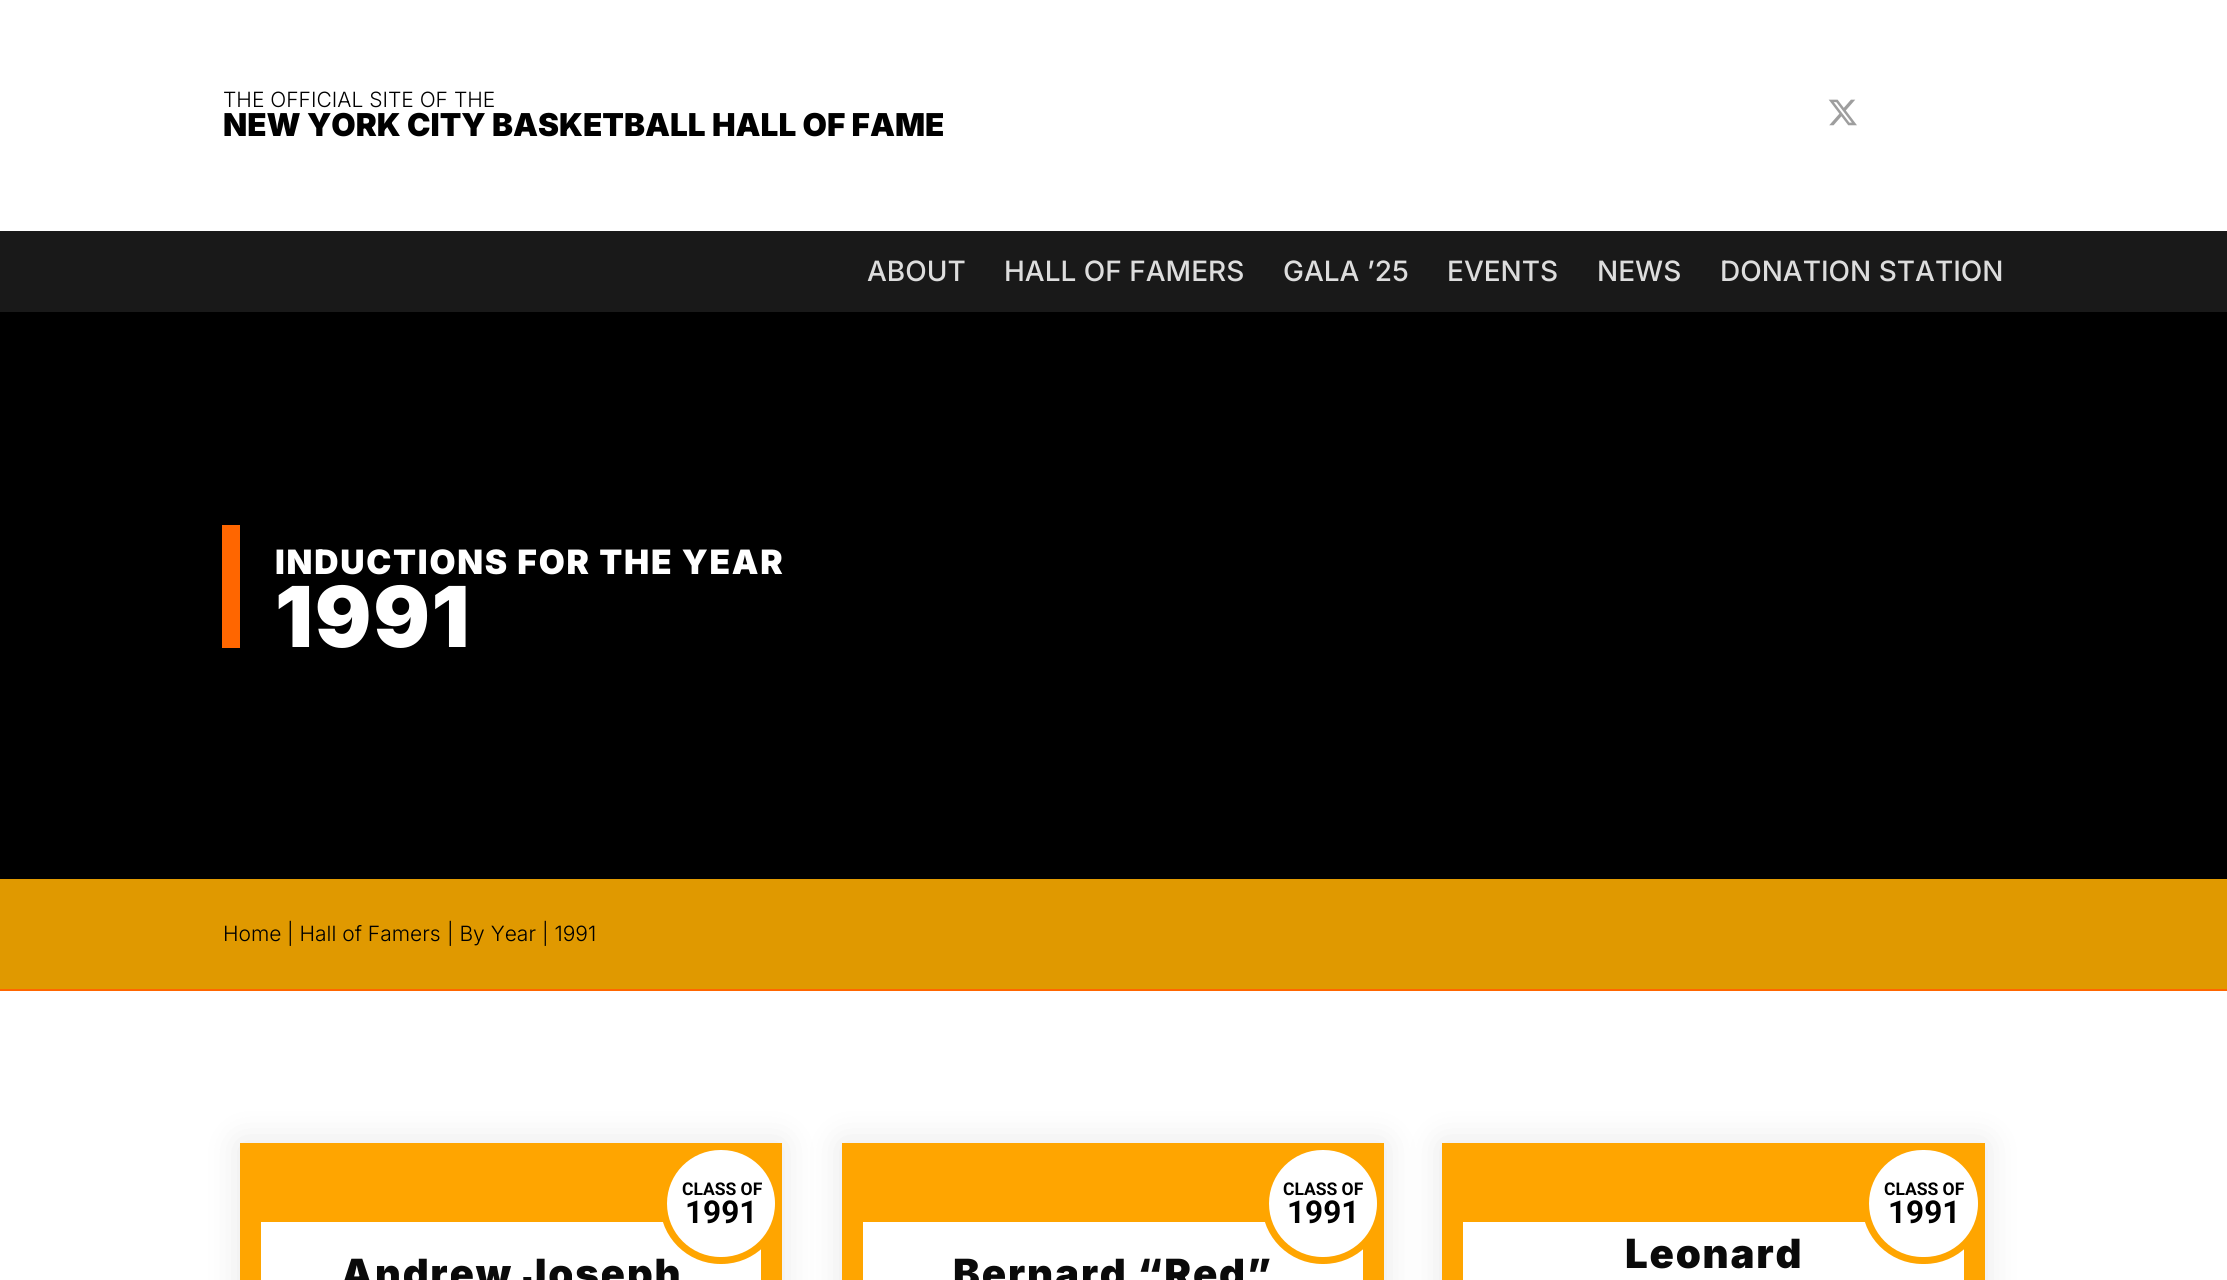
#include <cairo/cairo.h>
#include <math.h>
#include <stddef.h>


static void draw_spaced(cairo_t *cr, double x, double y, const char *s, double letter, double word) {
  cairo_move_to(cr, x, y);
  while (*s) {
    char ch[5] = {0};
    int n = 0;
    do ch[n++] = *s++; while ((*s & 0xC0) == 0x80);
    cairo_show_text(cr, ch);
    cairo_rel_move_to(cr, letter + word * (*ch == ' '), 0);
  }
}

static void rounded_rect(cairo_t *cr, double x, double y, double w, double h, double r) {
  cairo_new_sub_path(cr);
  cairo_arc(cr, x + w - r, y + h - r, r, 0, M_PI / 2);
  cairo_arc(cr, x + r, y + h - r, r, M_PI / 2, M_PI);
  cairo_arc(cr, x + r, y + r, r, M_PI, 1.5 * M_PI);
  cairo_arc(cr, x + w - r, y + r, r, 1.5 * M_PI, 2 * M_PI);
  cairo_close_path(cr);
}

static void draw_shadow(cairo_t *cr, double x, double y, double w, double h, double r, double blur, double alpha) {
  cairo_push_group_with_content(cr, CAIRO_CONTENT_ALPHA);
  cairo_set_operator(cr, CAIRO_OPERATOR_SOURCE);
  for (int i = 15; i >= -15 && fmin(w, h) + blur * i / 3 > 0; i -= 2) {
    double e = blur * i / 6;
    cairo_set_source_rgba(cr, 0, 0, 0, alpha * erfc((i - 1) / 8.5) / 2);
    rounded_rect(cr, x - e, y - e, w + 2 * e, h + 2 * e, fmax(0, fmin(r + e + blur * .6, fmin(w, h) / 2 + e)));
    cairo_fill(cr);
  }
  cairo_pattern_t *soft = cairo_pop_group(cr);
  cairo_mask(cr, soft);
  cairo_pattern_destroy(soft);
}

static void draw_image(cairo_t *cr, const char *path, double x, double y, double w, double h) {
  cairo_surface_t *image = cairo_image_surface_create_from_png(path);
  cairo_save(cr);
  cairo_set_source_surface(cr, image, x, y);
  cairo_rectangle(cr, x, y, w, h);
  cairo_fill(cr);
  cairo_restore(cr);
  cairo_surface_destroy(image);
}

static void draw(cairo_t *cr) {
  cairo_set_source_rgb(cr, 1, 1, 1);
  cairo_paint(cr);
  draw_image(cr, "images/1.png", 1828, 99, 29, 27);
  cairo_set_source_rgb(cr, 25 / 255.0, 25 / 255.0, 25 / 255.0);
  cairo_rectangle(cr, 0, 231, 2227, 81);
  cairo_fill(cr);
  cairo_set_source_rgb(cr, 0, 0, 0);
  cairo_rectangle(cr, 0, 312, 2227, 567);
  cairo_fill(cr);
  cairo_set_source_rgb(cr, 1, 102 / 255.0, 0);
  cairo_rectangle(cr, 222, 525, 18, 123);
  cairo_fill(cr);
  cairo_set_source_rgb(cr, 224 / 255.0, 153 / 255.0, 0);
  cairo_rectangle(cr, 0, 879, 2227, 110);
  cairo_fill(cr);
  cairo_set_source_rgb(cr, 1, 102 / 255.0, 0);
  cairo_rectangle(cr, 0, 989, 2227, 2);
  cairo_fill(cr);
  cairo_set_source_rgb(cr, 0, 0, 0);
  draw_shadow(cr, 240, 1143, 542, 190, 0, 17.5, 0.1);
  cairo_set_source_rgb(cr, 1, 165 / 255.0, 0);
  cairo_rectangle(cr, 240, 1143, 542, 137);
  cairo_fill(cr);
  cairo_set_source_rgb(cr, 1, 1, 1);
  cairo_rectangle(cr, 261, 1222, 500, 58);
  cairo_fill(cr);
  cairo_set_source_rgb(cr, 0, 0, 0);
  draw_shadow(cr, 842, 1143, 542, 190, 0, 17.5, 0.1);
  cairo_set_source_rgb(cr, 1, 165 / 255.0, 0);
  cairo_rectangle(cr, 842, 1143, 542, 137);
  cairo_fill(cr);
  cairo_set_source_rgb(cr, 1, 1, 1);
  cairo_rectangle(cr, 863, 1222, 500, 58);
  cairo_fill(cr);
  cairo_set_source_rgb(cr, 0, 0, 0);
  draw_shadow(cr, 1442, 1143, 543, 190, 0, 17.5, 0.1);
  cairo_set_source_rgb(cr, 1, 165 / 255.0, 0);
  cairo_rectangle(cr, 1442, 1143, 543, 137);
  cairo_fill(cr);
  cairo_set_source_rgb(cr, 1, 1, 1);
  cairo_rectangle(cr, 1463, 1222, 501, 58);
  cairo_fill(cr);
  rounded_rect(cr, 1865.5, 1146.5, 116, 114, 57);
  cairo_fill_preserve(cr);
  cairo_set_source_rgb(cr, 1, 165 / 255.0, 0);
  cairo_set_line_width(cr, 7);
  cairo_stroke(cr);
  cairo_select_font_face(cr, "Inter Light", CAIRO_FONT_SLANT_NORMAL, CAIRO_FONT_WEIGHT_NORMAL);
  cairo_set_font_size(cr, 21);
  cairo_set_source_rgb(cr, 0, 0, 0);
  cairo_move_to(cr, 223, 107);
  cairo_show_text(cr, "THE OFFICIAL SITE OF THE");
  cairo_select_font_face(cr, "Inter Black", CAIRO_FONT_SLANT_NORMAL, CAIRO_FONT_WEIGHT_NORMAL);
  cairo_set_font_size(cr, 31.5);
  cairo_move_to(cr, 223, 136);
  cairo_show_text(cr, "NEW YORK CITY BASKETBALL HALL OF FAME");
  cairo_select_font_face(cr, "Inter Medium", CAIRO_FONT_SLANT_NORMAL, CAIRO_FONT_WEIGHT_NORMAL);
  cairo_set_font_size(cr, 28);
  cairo_set_source_rgb(cr, 221 / 255.0, 221 / 255.0, 221 / 255.0);
  cairo_move_to(cr, 867, 281);
  cairo_show_text(cr, "ABOUT");
  cairo_move_to(cr, 1004, 281);
  cairo_show_text(cr, "HALL OF FAMERS");
  cairo_move_to(cr, 1283, 281);
  cairo_show_text(cr, "GALA ’25");
  cairo_move_to(cr, 1447, 281);
  cairo_show_text(cr, "EVENTS");
  cairo_move_to(cr, 1597, 281);
  cairo_show_text(cr, "NEWS");
  cairo_move_to(cr, 1720, 281);
  cairo_show_text(cr, "DONATION STATION");
  cairo_select_font_face(cr, "Inter Black", CAIRO_FONT_SLANT_NORMAL, CAIRO_FONT_WEIGHT_NORMAL);
  cairo_set_font_size(cr, 33.6);
  cairo_set_source_rgb(cr, 1, 1, 1);
  draw_spaced(cr, 275, 574, "INDUCTIONS FOR THE YEAR", 1.75, 0);
  cairo_set_font_size(cr, 84);
  draw_spaced(cr, 275, 647, "1991", 1.75, 0);
  cairo_select_font_face(cr, "Inter Light", CAIRO_FONT_SLANT_NORMAL, CAIRO_FONT_WEIGHT_NORMAL);
  cairo_set_font_size(cr, 21);
  cairo_set_source_rgb(cr, 0, 0, 0);
  cairo_move_to(cr, 223, 941);
  cairo_show_text(cr, "Home");
  cairo_move_to(cr, 287, 941);
  cairo_show_text(cr, "| Hall of Famers");
  cairo_move_to(cr, 447, 941);
  cairo_show_text(cr, "| By Year");
  cairo_move_to(cr, 542, 941);
  cairo_show_text(cr, "| 1991");
  cairo_select_font_face(cr, "Inter Black", CAIRO_FONT_SLANT_NORMAL, CAIRO_FONT_WEIGHT_NORMAL);
  cairo_set_font_size(cr, 40.25);
  cairo_set_source_rgb(cr, 10 / 255.0, 10 / 255.0, 10 / 255.0);
  draw_spaced(cr, 341, 1288, "Andrew Joseph", 1.75, 0);
  cairo_set_source_rgb(cr, 1, 1, 1);
  rounded_rect(cr, 663.5, 1146.5, 115, 114, 57);
  cairo_fill_preserve(cr);
  cairo_set_source_rgb(cr, 1, 165 / 255.0, 0);
  cairo_stroke(cr);
  cairo_select_font_face(cr, "Roboto", CAIRO_FONT_SLANT_NORMAL, CAIRO_FONT_WEIGHT_BOLD);
  cairo_set_font_size(cr, 31.5);
  cairo_set_source_rgb(cr, 0, 0, 0);
  cairo_move_to(cr, 685, 1223);
  cairo_show_text(cr, "1991");
  cairo_set_font_size(cr, 17.5);
  cairo_move_to(cr, 682, 1195);
  cairo_show_text(cr, "CLASS OF");
  cairo_select_font_face(cr, "Inter Black", CAIRO_FONT_SLANT_NORMAL, CAIRO_FONT_WEIGHT_NORMAL);
  cairo_set_font_size(cr, 40.25);
  cairo_set_source_rgb(cr, 10 / 255.0, 10 / 255.0, 10 / 255.0);
  draw_spaced(cr, 953, 1288, "Bernard “Red”", 1.75, 0);
  cairo_set_source_rgb(cr, 1, 1, 1);
  rounded_rect(cr, 1265.5, 1146.5, 115, 114, 57);
  cairo_fill_preserve(cr);
  cairo_set_source_rgb(cr, 1, 165 / 255.0, 0);
  cairo_stroke(cr);
  cairo_select_font_face(cr, "Roboto", CAIRO_FONT_SLANT_NORMAL, CAIRO_FONT_WEIGHT_BOLD);
  cairo_set_font_size(cr, 31.5);
  cairo_set_source_rgb(cr, 0, 0, 0);
  cairo_move_to(cr, 1287, 1223);
  cairo_show_text(cr, "1991");
  cairo_set_font_size(cr, 17.5);
  cairo_move_to(cr, 1283, 1195);
  cairo_show_text(cr, "CLASS OF");
  cairo_move_to(cr, 1884, 1195);
  cairo_show_text(cr, "CLASS OF");
  cairo_set_font_size(cr, 31.5);
  cairo_move_to(cr, 1888, 1223);
  cairo_show_text(cr, "1991");
  cairo_select_font_face(cr, "Inter Black", CAIRO_FONT_SLANT_NORMAL, CAIRO_FONT_WEIGHT_NORMAL);
  cairo_set_font_size(cr, 40.25);
  cairo_set_source_rgb(cr, 10 / 255.0, 10 / 255.0, 10 / 255.0);
  draw_spaced(cr, 1625, 1268, "Leonard", 1.75, 0);
}

int main(void) {
  cairo_surface_t *surface = cairo_image_surface_create(CAIRO_FORMAT_RGB24, 2227, 1280);
  cairo_t *cr = cairo_create(surface);
  cairo_font_options_t *options = cairo_font_options_create();
  cairo_font_options_set_hint_metrics(options, CAIRO_HINT_METRICS_OFF);
  cairo_font_options_set_hint_style(options, CAIRO_HINT_STYLE_NONE);
  cairo_set_font_options(cr, options);
  cairo_set_miter_limit(cr, 4);
  draw(cr);
  cairo_surface_write_to_png(surface, "out.png");
  cairo_font_options_destroy(options);
  cairo_destroy(cr);
  cairo_surface_destroy(surface);
  return 0;
}
